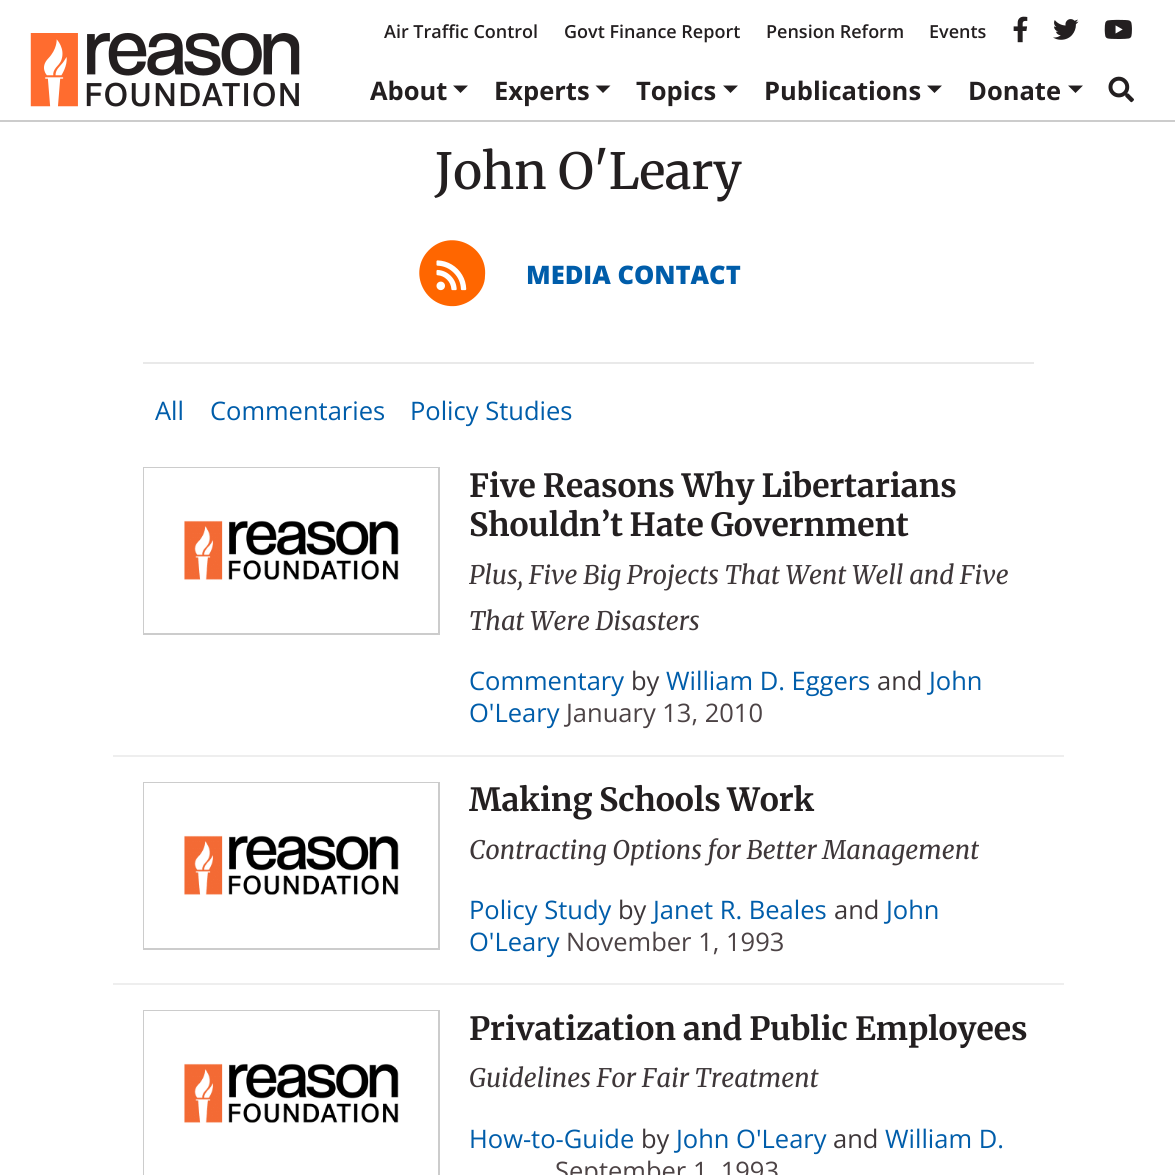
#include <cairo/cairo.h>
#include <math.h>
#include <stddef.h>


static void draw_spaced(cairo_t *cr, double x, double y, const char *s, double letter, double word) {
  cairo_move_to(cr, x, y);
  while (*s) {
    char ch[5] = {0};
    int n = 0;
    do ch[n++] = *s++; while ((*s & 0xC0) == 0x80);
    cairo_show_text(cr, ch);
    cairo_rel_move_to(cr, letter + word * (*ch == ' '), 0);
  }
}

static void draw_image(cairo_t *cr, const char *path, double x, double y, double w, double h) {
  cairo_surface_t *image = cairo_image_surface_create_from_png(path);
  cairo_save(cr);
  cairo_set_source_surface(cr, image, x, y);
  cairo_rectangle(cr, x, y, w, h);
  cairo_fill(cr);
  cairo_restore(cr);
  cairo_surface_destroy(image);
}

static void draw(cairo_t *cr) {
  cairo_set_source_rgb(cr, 1, 1, 1);
  cairo_paint(cr);
  draw_image(cr, "images/1.png", 1013, 16, 15, 27);
  draw_image(cr, "images/2.png", 1053, 19, 26, 21);
  draw_image(cr, "images/3.png", 1104, 19, 28, 20);
  cairo_set_source_rgb(cr, 204 / 255.0, 204 / 255.0, 204 / 255.0);
  cairo_rectangle(cr, 0, 120, 1175, 2);
  cairo_fill(cr);
  draw_image(cr, "images/4.png", 30, 33, 270, 74);
  cairo_set_source_rgb(cr, 35 / 255.0, 31 / 255.0, 32 / 255.0);
  cairo_new_path(cr);
  cairo_move_to(cr, 453, 85.5);
  cairo_line_to(cr, 468, 85.5);
  cairo_line_to(cr, 460.5, 93);
  cairo_close_path(cr);
  cairo_fill(cr);
  cairo_new_path(cr);
  cairo_move_to(cr, 595.5, 85.5);
  cairo_line_to(cr, 610.5, 85.5);
  cairo_line_to(cr, 603, 93);
  cairo_close_path(cr);
  cairo_fill(cr);
  cairo_new_path(cr);
  cairo_move_to(cr, 723, 85.5);
  cairo_line_to(cr, 738, 85.5);
  cairo_line_to(cr, 730.5, 93);
  cairo_close_path(cr);
  cairo_fill(cr);
  cairo_new_path(cr);
  cairo_move_to(cr, 927, 85.5);
  cairo_line_to(cr, 942, 85.5);
  cairo_line_to(cr, 934.5, 93);
  cairo_close_path(cr);
  cairo_fill(cr);
  cairo_new_path(cr);
  cairo_move_to(cr, 1068, 85.5);
  cairo_line_to(cr, 1083, 85.5);
  cairo_line_to(cr, 1075.5, 93);
  cairo_close_path(cr);
  cairo_fill(cr);
  draw_image(cr, "images/5.png", 1108, 76, 26, 27);
  cairo_set_source_rgb(cr, 1, 102 / 255.0, 0);
  cairo_new_path(cr);
  cairo_move_to(cr, 429, 250);
  cairo_curve_to(cr, 451, 228, 488, 246, 485, 276);
  cairo_curve_to(cr, 485, 284, 481, 291, 476, 296);
  cairo_curve_to(cr, 470, 302, 463, 305, 456, 306);
  cairo_curve_to(cr, 425, 309, 407, 272, 429, 250);
  cairo_close_path(cr);
  cairo_fill(cr);
  draw_image(cr, "images/6.png", 436, 260, 31, 31);
  cairo_set_source_rgb(cr, 233 / 255.0, 233 / 255.0, 233 / 255.0);
  cairo_rectangle(cr, 143, 362, 891, 2);
  cairo_fill(cr);
  cairo_set_source_rgb(cr, 238 / 255.0, 238 / 255.0, 238 / 255.0);
  cairo_rectangle(cr, 113, 755, 951, 2);
  cairo_fill(cr);
  cairo_rectangle(cr, 144, 468, 295, 166);
  cairo_set_source_rgb(cr, 204 / 255.0, 204 / 255.0, 204 / 255.0);
  cairo_stroke(cr);
  draw_image(cr, "images/7.png", 144, 468, 294, 165);
  cairo_set_source_rgb(cr, 238 / 255.0, 238 / 255.0, 238 / 255.0);
  cairo_rectangle(cr, 113, 983, 951, 2);
  cairo_fill(cr);
  cairo_rectangle(cr, 144, 783, 295, 166);
  cairo_set_source_rgb(cr, 204 / 255.0, 204 / 255.0, 204 / 255.0);
  cairo_stroke(cr);
  draw_image(cr, "images/7.png", 144, 783, 294, 165);
  cairo_rectangle(cr, 144, 1011, 295, 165);
  cairo_stroke(cr);
  draw_image(cr, "images/8.png", 144, 1011, 294, 164);
  cairo_select_font_face(cr, "Open Sans SemiBold", CAIRO_FONT_SLANT_NORMAL, CAIRO_FONT_WEIGHT_NORMAL);
  cairo_set_font_size(cr, 18);
  cairo_set_source_rgb(cr, 35 / 255.0, 31 / 255.0, 32 / 255.0);
  cairo_move_to(cr, 384, 38);
  cairo_show_text(cr, "Air Traffic Control");
  cairo_move_to(cr, 564, 38);
  cairo_show_text(cr, "Govt Finance Report");
  cairo_move_to(cr, 766, 38);
  cairo_show_text(cr, "Pension Reform");
  cairo_move_to(cr, 929, 38);
  cairo_show_text(cr, "Events");
  cairo_select_font_face(cr, "Open Sans", CAIRO_FONT_SLANT_NORMAL, CAIRO_FONT_WEIGHT_BOLD);
  cairo_set_font_size(cr, 25.5);
  cairo_move_to(cr, 370, 100);
  cairo_show_text(cr, "About");
  cairo_move_to(cr, 494, 100);
  cairo_show_text(cr, "Experts");
  cairo_move_to(cr, 636, 100);
  cairo_show_text(cr, "Topics");
  cairo_move_to(cr, 764, 100);
  cairo_show_text(cr, "Publications");
  cairo_move_to(cr, 968, 100);
  cairo_show_text(cr, "Donate");
  cairo_select_font_face(cr, "Merriweather Medium", CAIRO_FONT_SLANT_NORMAL, CAIRO_FONT_WEIGHT_NORMAL);
  cairo_set_font_size(cr, 49.75);
  cairo_move_to(cr, 435, 189);
  cairo_show_text(cr, "John O'Leary");
  cairo_select_font_face(cr, "Open Sans ExtraBold", CAIRO_FONT_SLANT_NORMAL, CAIRO_FONT_WEIGHT_NORMAL);
  cairo_set_font_size(cr, 25.5);
  cairo_set_source_rgb(cr, 0, 93 / 255.0, 170 / 255.0);
  cairo_move_to(cr, 526, 284);
  cairo_show_text(cr, "MEDIA CONTACT");
  cairo_select_font_face(cr, "Open Sans", CAIRO_FONT_SLANT_NORMAL, CAIRO_FONT_WEIGHT_NORMAL);
  cairo_move_to(cr, 155, 420);
  cairo_show_text(cr, "All");
  cairo_move_to(cr, 210, 420);
  cairo_show_text(cr, "Commentaries");
  cairo_move_to(cr, 410, 420);
  cairo_show_text(cr, "Policy Studies");
  cairo_select_font_face(cr, "Merriweather", CAIRO_FONT_SLANT_NORMAL, CAIRO_FONT_WEIGHT_BOLD);
  cairo_set_font_size(cr, 31.9);
  cairo_set_source_rgb(cr, 35 / 255.0, 31 / 255.0, 32 / 255.0);
  draw_spaced(cr, 469, 497, "Five Reasons Why Libertarians", 0, -0.5);
  draw_spaced(cr, 469, 536, "Shouldn’t Hate Government", 0, -1);
  cairo_select_font_face(cr, "Merriweather", CAIRO_FONT_SLANT_ITALIC, CAIRO_FONT_WEIGHT_NORMAL);
  cairo_set_font_size(cr, 25.5);
  cairo_set_source_rgb(cr, 62 / 255.0, 55 / 255.0, 57 / 255.0);
  cairo_move_to(cr, 469, 584);
  cairo_show_text(cr, "Plus, Five Big Projects That Went Well and Five");
  cairo_move_to(cr, 469, 630);
  cairo_show_text(cr, "That Were Disasters");
  cairo_select_font_face(cr, "Open Sans", CAIRO_FONT_SLANT_NORMAL, CAIRO_FONT_WEIGHT_NORMAL);
  cairo_set_source_rgb(cr, 0, 93 / 255.0, 170 / 255.0);
  cairo_move_to(cr, 469, 690);
  cairo_show_text(cr, "Commentary");
  cairo_set_source_rgb(cr, 62 / 255.0, 55 / 255.0, 57 / 255.0);
  cairo_move_to(cr, 631, 690);
  cairo_show_text(cr, "by");
  cairo_set_source_rgb(cr, 0, 93 / 255.0, 170 / 255.0);
  cairo_move_to(cr, 666, 690);
  cairo_show_text(cr, "William D. Eggers");
  cairo_set_source_rgb(cr, 62 / 255.0, 55 / 255.0, 57 / 255.0);
  cairo_move_to(cr, 877, 690);
  cairo_show_text(cr, "and");
  cairo_set_source_rgb(cr, 0, 93 / 255.0, 170 / 255.0);
  cairo_move_to(cr, 929, 690);
  cairo_show_text(cr, "John");
  cairo_move_to(cr, 469, 722);
  cairo_show_text(cr, "O'Leary");
  cairo_set_source_rgb(cr, 76 / 255.0, 67 / 255.0, 69 / 255.0);
  cairo_move_to(cr, 566, 722);
  cairo_show_text(cr, "January 13, 2010");
  cairo_select_font_face(cr, "Merriweather", CAIRO_FONT_SLANT_NORMAL, CAIRO_FONT_WEIGHT_BOLD);
  cairo_set_font_size(cr, 31.9);
  cairo_set_source_rgb(cr, 35 / 255.0, 31 / 255.0, 32 / 255.0);
  draw_spaced(cr, 469, 811, "Making Schools Work", 0, -1);
  cairo_select_font_face(cr, "Merriweather", CAIRO_FONT_SLANT_ITALIC, CAIRO_FONT_WEIGHT_NORMAL);
  cairo_set_font_size(cr, 25.5);
  cairo_set_source_rgb(cr, 62 / 255.0, 55 / 255.0, 57 / 255.0);
  cairo_move_to(cr, 469, 859);
  cairo_show_text(cr, "Contracting Options for Better Management");
  cairo_select_font_face(cr, "Open Sans", CAIRO_FONT_SLANT_NORMAL, CAIRO_FONT_WEIGHT_NORMAL);
  cairo_set_source_rgb(cr, 0, 93 / 255.0, 170 / 255.0);
  cairo_move_to(cr, 469, 919);
  cairo_show_text(cr, "Policy Study");
  cairo_set_source_rgb(cr, 62 / 255.0, 55 / 255.0, 57 / 255.0);
  cairo_move_to(cr, 618, 919);
  cairo_show_text(cr, "by");
  cairo_set_source_rgb(cr, 0, 93 / 255.0, 170 / 255.0);
  cairo_move_to(cr, 653, 919);
  cairo_show_text(cr, "Janet R. Beales");
  cairo_set_source_rgb(cr, 62 / 255.0, 55 / 255.0, 57 / 255.0);
  cairo_move_to(cr, 834, 919);
  cairo_show_text(cr, "and");
  cairo_set_source_rgb(cr, 0, 93 / 255.0, 170 / 255.0);
  cairo_move_to(cr, 886, 919);
  cairo_show_text(cr, "John");
  cairo_move_to(cr, 469, 951);
  cairo_show_text(cr, "O'Leary");
  cairo_set_source_rgb(cr, 76 / 255.0, 67 / 255.0, 69 / 255.0);
  cairo_move_to(cr, 566, 951);
  cairo_show_text(cr, "November 1, 1993");
  cairo_select_font_face(cr, "Merriweather", CAIRO_FONT_SLANT_NORMAL, CAIRO_FONT_WEIGHT_BOLD);
  cairo_set_font_size(cr, 31.9);
  cairo_set_source_rgb(cr, 35 / 255.0, 31 / 255.0, 32 / 255.0);
  draw_spaced(cr, 469, 1040, "Privatization and Public Employees", 0, -0.5);
  cairo_select_font_face(cr, "Merriweather", CAIRO_FONT_SLANT_ITALIC, CAIRO_FONT_WEIGHT_NORMAL);
  cairo_set_font_size(cr, 25.5);
  cairo_set_source_rgb(cr, 62 / 255.0, 55 / 255.0, 57 / 255.0);
  cairo_move_to(cr, 469, 1087);
  cairo_show_text(cr, "Guidelines For Fair Treatment");
  cairo_select_font_face(cr, "Open Sans", CAIRO_FONT_SLANT_NORMAL, CAIRO_FONT_WEIGHT_NORMAL);
  cairo_set_source_rgb(cr, 0, 93 / 255.0, 170 / 255.0);
  cairo_move_to(cr, 469, 1148);
  cairo_show_text(cr, "How-to-Guide");
  cairo_set_source_rgb(cr, 62 / 255.0, 55 / 255.0, 57 / 255.0);
  cairo_move_to(cr, 641, 1148);
  cairo_show_text(cr, "by");
  cairo_set_source_rgb(cr, 0, 93 / 255.0, 170 / 255.0);
  cairo_move_to(cr, 676, 1148);
  cairo_show_text(cr, "John O'Leary");
  cairo_set_source_rgb(cr, 62 / 255.0, 55 / 255.0, 57 / 255.0);
  cairo_move_to(cr, 833, 1148);
  cairo_show_text(cr, "and");
  cairo_set_source_rgb(cr, 0, 93 / 255.0, 170 / 255.0);
  cairo_move_to(cr, 885, 1148);
  cairo_show_text(cr, "William D.");
  cairo_set_source_rgb(cr, 76 / 255.0, 67 / 255.0, 69 / 255.0);
  cairo_move_to(cr, 555, 1180);
  cairo_show_text(cr, "September 1, 1993");
}

int main(void) {
  cairo_surface_t *surface = cairo_image_surface_create(CAIRO_FORMAT_RGB24, 1175, 1175);
  cairo_t *cr = cairo_create(surface);
  cairo_font_options_t *options = cairo_font_options_create();
  cairo_font_options_set_hint_metrics(options, CAIRO_HINT_METRICS_OFF);
  cairo_font_options_set_hint_style(options, CAIRO_HINT_STYLE_NONE);
  cairo_set_font_options(cr, options);
  cairo_set_miter_limit(cr, 4);
  draw(cr);
  cairo_surface_write_to_png(surface, "out.png");
  cairo_font_options_destroy(options);
  cairo_destroy(cr);
  cairo_surface_destroy(surface);
  return 0;
}
